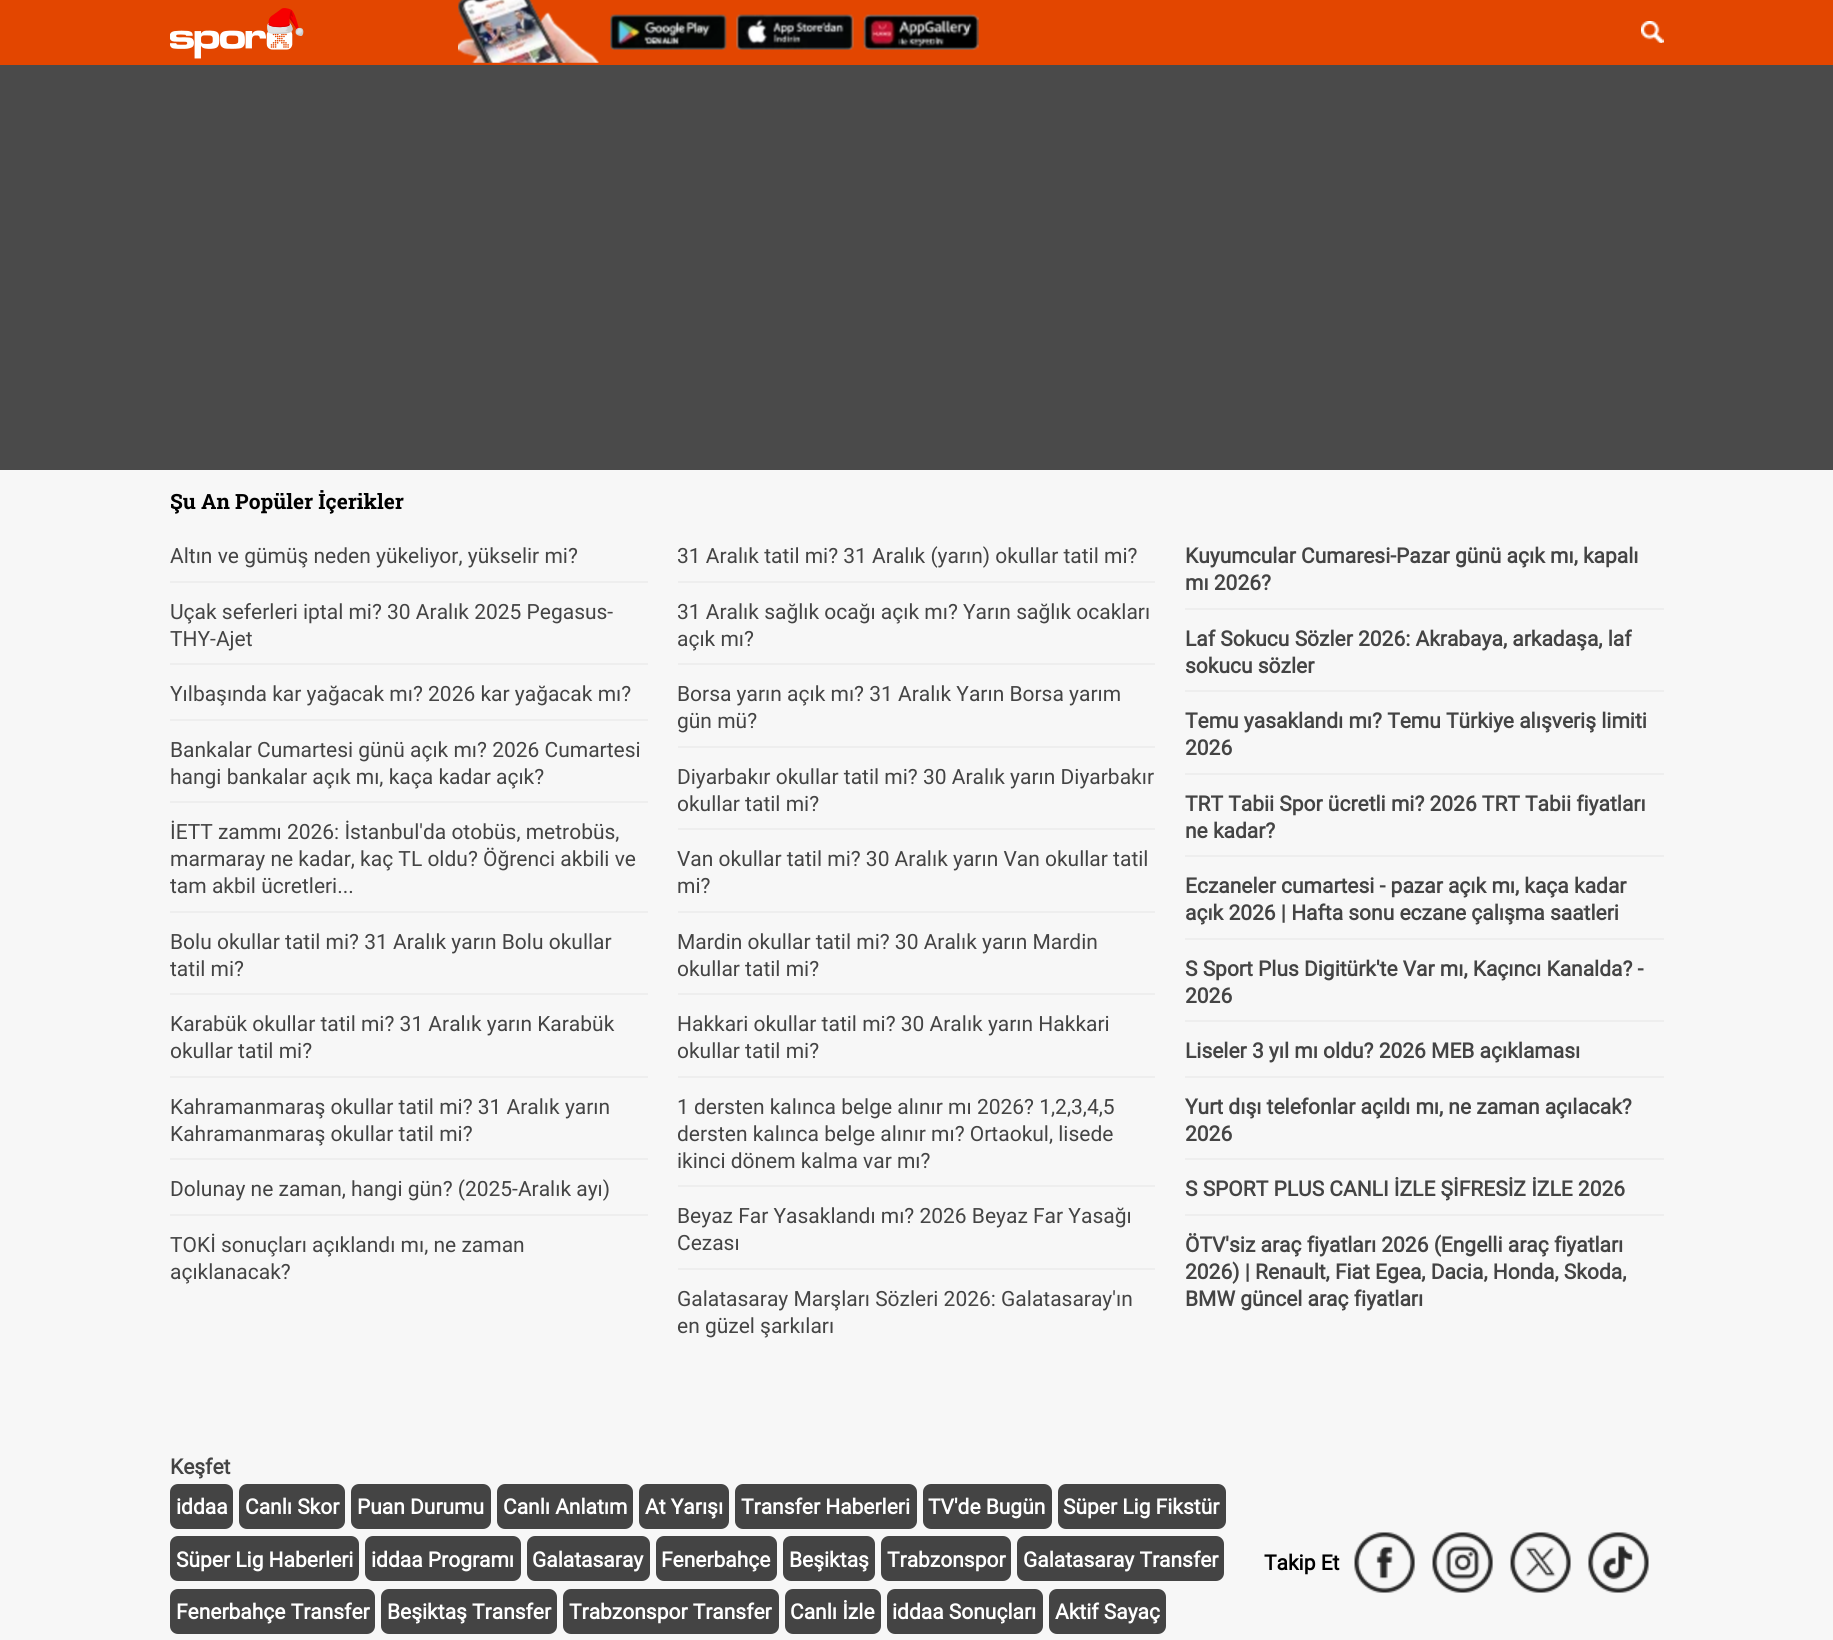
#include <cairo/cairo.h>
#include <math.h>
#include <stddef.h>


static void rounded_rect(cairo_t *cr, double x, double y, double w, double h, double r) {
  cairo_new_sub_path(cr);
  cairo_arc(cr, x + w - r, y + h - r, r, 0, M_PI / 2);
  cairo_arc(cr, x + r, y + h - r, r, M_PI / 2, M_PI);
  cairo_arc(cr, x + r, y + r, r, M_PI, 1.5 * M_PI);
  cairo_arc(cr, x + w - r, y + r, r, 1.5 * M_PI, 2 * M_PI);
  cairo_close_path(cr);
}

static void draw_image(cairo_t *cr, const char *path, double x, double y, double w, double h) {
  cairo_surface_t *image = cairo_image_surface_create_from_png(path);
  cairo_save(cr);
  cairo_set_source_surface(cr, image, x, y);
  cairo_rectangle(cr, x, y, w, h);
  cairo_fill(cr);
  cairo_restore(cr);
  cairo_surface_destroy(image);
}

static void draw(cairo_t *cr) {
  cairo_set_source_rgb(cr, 247 / 255.0, 247 / 255.0, 247 / 255.0);
  cairo_paint(cr);
  cairo_set_source_rgb(cr, 227 / 255.0, 70 / 255.0, 0);
  cairo_rectangle(cr, 0, 0, 1833, 65);
  cairo_fill(cr);
  draw_image(cr, "images/1.png", 170, 8, 134, 51);
  draw_image(cr, "images/2.png", 458, 0, 141, 63);
  draw_image(cr, "images/3.png", 610, 14, 117, 36);
  draw_image(cr, "images/4.png", 736, 14, 118, 36);
  draw_image(cr, "images/5.png", 863, 14, 116, 36);
  draw_image(cr, "images/6.png", 1641, 21, 23, 22);
  cairo_set_source_rgb(cr, 74 / 255.0, 74 / 255.0, 74 / 255.0);
  cairo_rectangle(cr, 0, 65, 1833, 405);
  cairo_fill(cr);
  cairo_set_source_rgb(cr, 238 / 255.0, 238 / 255.0, 238 / 255.0);
  cairo_rectangle(cr, 170, 581, 478, 2);
  cairo_fill(cr);
  cairo_rectangle(cr, 170, 663, 478, 2);
  cairo_fill(cr);
  cairo_rectangle(cr, 170, 719, 478, 2);
  cairo_fill(cr);
  cairo_rectangle(cr, 170, 801, 478, 2);
  cairo_fill(cr);
  cairo_rectangle(cr, 170, 911, 478, 2);
  cairo_fill(cr);
  cairo_rectangle(cr, 170, 993, 478, 2);
  cairo_fill(cr);
  cairo_rectangle(cr, 170, 1076, 478, 2);
  cairo_fill(cr);
  cairo_rectangle(cr, 170, 1158, 478, 2);
  cairo_fill(cr);
  cairo_rectangle(cr, 170, 1214, 478, 2);
  cairo_fill(cr);
  cairo_rectangle(cr, 678, 581, 477, 2);
  cairo_fill(cr);
  cairo_rectangle(cr, 678, 663, 477, 2);
  cairo_fill(cr);
  cairo_rectangle(cr, 678, 746, 477, 2);
  cairo_fill(cr);
  cairo_rectangle(cr, 678, 828, 477, 2);
  cairo_fill(cr);
  cairo_rectangle(cr, 678, 911, 477, 2);
  cairo_fill(cr);
  cairo_rectangle(cr, 678, 993, 477, 2);
  cairo_fill(cr);
  cairo_rectangle(cr, 678, 1076, 477, 2);
  cairo_fill(cr);
  cairo_rectangle(cr, 678, 1185, 477, 2);
  cairo_fill(cr);
  cairo_rectangle(cr, 678, 1268, 477, 2);
  cairo_fill(cr);
  cairo_rectangle(cr, 1185, 608, 479, 2);
  cairo_fill(cr);
  cairo_rectangle(cr, 1185, 690, 479, 2);
  cairo_fill(cr);
  cairo_rectangle(cr, 1185, 773, 479, 2);
  cairo_fill(cr);
  cairo_rectangle(cr, 1185, 855, 479, 2);
  cairo_fill(cr);
  cairo_rectangle(cr, 1185, 938, 479, 2);
  cairo_fill(cr);
  cairo_rectangle(cr, 1185, 1020, 479, 2);
  cairo_fill(cr);
  cairo_rectangle(cr, 1185, 1076, 479, 2);
  cairo_fill(cr);
  cairo_rectangle(cr, 1185, 1158, 479, 2);
  cairo_fill(cr);
  cairo_rectangle(cr, 1185, 1214, 479, 2);
  cairo_fill(cr);
  cairo_set_source_rgb(cr, 68 / 255.0, 68 / 255.0, 68 / 255.0);
  rounded_rect(cr, 170, 1484, 63, 45, 8);
  cairo_fill(cr);
  rounded_rect(cr, 239, 1484, 106, 45, 8);
  cairo_fill(cr);
  rounded_rect(cr, 351, 1484, 140, 45, 8);
  cairo_fill(cr);
  rounded_rect(cr, 497, 1484, 136, 45, 8);
  cairo_fill(cr);
  rounded_rect(cr, 639, 1484, 90, 45, 8);
  cairo_fill(cr);
  rounded_rect(cr, 735, 1484, 182, 45, 8);
  cairo_fill(cr);
  rounded_rect(cr, 923, 1484, 129, 45, 8);
  cairo_fill(cr);
  rounded_rect(cr, 1058, 1484, 168, 45, 8);
  cairo_fill(cr);
  rounded_rect(cr, 170, 1536, 189, 45, 8);
  cairo_fill(cr);
  rounded_rect(cr, 365, 1536, 156, 45, 8);
  cairo_fill(cr);
  rounded_rect(cr, 527, 1536, 123, 45, 8);
  cairo_fill(cr);
  rounded_rect(cr, 656, 1536, 121, 45, 8);
  cairo_fill(cr);
  rounded_rect(cr, 783, 1536, 92, 45, 8);
  cairo_fill(cr);
  rounded_rect(cr, 881, 1536, 130, 45, 8);
  cairo_fill(cr);
  rounded_rect(cr, 1017, 1536, 207, 45, 8);
  cairo_fill(cr);
  rounded_rect(cr, 170, 1589, 205, 45, 8);
  cairo_fill(cr);
  rounded_rect(cr, 381, 1589, 176, 45, 8);
  cairo_fill(cr);
  rounded_rect(cr, 563, 1589, 216, 45, 8);
  cairo_fill(cr);
  rounded_rect(cr, 785, 1589, 96, 45, 8);
  cairo_fill(cr);
  rounded_rect(cr, 887, 1589, 156, 45, 8);
  cairo_fill(cr);
  rounded_rect(cr, 1049, 1589, 117, 45, 8);
  cairo_fill(cr);
  draw_image(cr, "images/7.png", 1354, 1532, 61, 61);
  draw_image(cr, "images/8.png", 1432, 1532, 61, 61);
  draw_image(cr, "images/9.png", 1510, 1532, 61, 61);
  draw_image(cr, "images/10.png", 1588, 1532, 61, 61);
  cairo_select_font_face(cr, "Roboto Slab", CAIRO_FONT_SLANT_NORMAL, CAIRO_FONT_WEIGHT_BOLD);
  cairo_set_font_size(cr, 21);
  cairo_set_source_rgb(cr, 0, 0, 0);
  cairo_move_to(cr, 170, 509);
  cairo_show_text(cr, "Şu An Popüler İçerikler");
  cairo_select_font_face(cr, "Roboto", CAIRO_FONT_SLANT_NORMAL, CAIRO_FONT_WEIGHT_NORMAL);
  cairo_set_source_rgb(cr, 68 / 255.0, 68 / 255.0, 68 / 255.0);
  cairo_move_to(cr, 170, 563);
  cairo_show_text(cr, "Altın ve gümüş neden yükeliyor, yükselir mi?");
  cairo_move_to(cr, 170, 619);
  cairo_show_text(cr, "Uçak seferleri iptal mi? 30 Aralık 2025 Pegasus-");
  cairo_move_to(cr, 170, 646);
  cairo_show_text(cr, "THY-Ajet");
  cairo_move_to(cr, 170, 701);
  cairo_show_text(cr, "Yılbaşında kar yağacak mı? 2026 kar yağacak mı?");
  cairo_move_to(cr, 170, 757);
  cairo_show_text(cr, "Bankalar Cumartesi günü açık mı? 2026 Cumartesi");
  cairo_move_to(cr, 170, 784);
  cairo_show_text(cr, "hangi bankalar açık mı, kaça kadar açık?");
  cairo_move_to(cr, 170, 839);
  cairo_show_text(cr, "İETT zammı 2026: İstanbul'da otobüs, metrobüs,");
  cairo_move_to(cr, 170, 866);
  cairo_show_text(cr, "marmaray ne kadar, kaç TL oldu? Öğrenci akbili ve");
  cairo_move_to(cr, 170, 893);
  cairo_show_text(cr, "tam akbil ücretleri...");
  cairo_move_to(cr, 170, 949);
  cairo_show_text(cr, "Bolu okullar tatil mi? 31 Aralık yarın Bolu okullar");
  cairo_move_to(cr, 170, 976);
  cairo_show_text(cr, "tatil mi?");
  cairo_move_to(cr, 170, 1031);
  cairo_show_text(cr, "Karabük okullar tatil mi? 31 Aralık yarın Karabük");
  cairo_move_to(cr, 170, 1058);
  cairo_show_text(cr, "okullar tatil mi?");
  cairo_move_to(cr, 170, 1114);
  cairo_show_text(cr, "Kahramanmaraş okullar tatil mi? 31 Aralık yarın");
  cairo_move_to(cr, 170, 1141);
  cairo_show_text(cr, "Kahramanmaraş okullar tatil mi?");
  cairo_move_to(cr, 170, 1196);
  cairo_show_text(cr, "Dolunay ne zaman, hangi gün? (2025-Aralık ayı)");
  cairo_move_to(cr, 170, 1252);
  cairo_show_text(cr, "TOKİ sonuçları açıklandı mı, ne zaman");
  cairo_move_to(cr, 170, 1279);
  cairo_show_text(cr, "açıklanacak?");
  cairo_move_to(cr, 677, 563);
  cairo_show_text(cr, "31 Aralık tatil mi? 31 Aralık (yarın) okullar tatil mi?");
  cairo_move_to(cr, 677, 619);
  cairo_show_text(cr, "31 Aralık sağlık ocağı açık mı? Yarın sağlık ocakları");
  cairo_move_to(cr, 677, 646);
  cairo_show_text(cr, "açık mı?");
  cairo_move_to(cr, 677, 701);
  cairo_show_text(cr, "Borsa yarın açık mı? 31 Aralık Yarın Borsa yarım");
  cairo_move_to(cr, 677, 728);
  cairo_show_text(cr, "gün mü?");
  cairo_move_to(cr, 677, 784);
  cairo_show_text(cr, "Diyarbakır okullar tatil mi? 30 Aralık yarın Diyarbakır");
  cairo_move_to(cr, 677, 811);
  cairo_show_text(cr, "okullar tatil mi?");
  cairo_move_to(cr, 677, 866);
  cairo_show_text(cr, "Van okullar tatil mi? 30 Aralık yarın Van okullar tatil");
  cairo_move_to(cr, 677, 893);
  cairo_show_text(cr, "mi?");
  cairo_move_to(cr, 677, 949);
  cairo_show_text(cr, "Mardin okullar tatil mi? 30 Aralık yarın Mardin");
  cairo_move_to(cr, 677, 976);
  cairo_show_text(cr, "okullar tatil mi?");
  cairo_move_to(cr, 677, 1031);
  cairo_show_text(cr, "Hakkari okullar tatil mi? 30 Aralık yarın Hakkari");
  cairo_move_to(cr, 677, 1058);
  cairo_show_text(cr, "okullar tatil mi?");
  cairo_move_to(cr, 677, 1114);
  cairo_show_text(cr, "1 dersten kalınca belge alınır mı 2026? 1,2,3,4,5");
  cairo_move_to(cr, 677, 1141);
  cairo_show_text(cr, "dersten kalınca belge alınır mı? Ortaokul, lisede");
  cairo_move_to(cr, 677, 1168);
  cairo_show_text(cr, "ikinci dönem kalma var mı?");
  cairo_move_to(cr, 677, 1223);
  cairo_show_text(cr, "Beyaz Far Yasaklandı mı? 2026 Beyaz Far Yasağı");
  cairo_move_to(cr, 677, 1250);
  cairo_show_text(cr, "Cezası");
  cairo_move_to(cr, 677, 1306);
  cairo_show_text(cr, "Galatasaray Marşları Sözleri 2026: Galatasaray'ın");
  cairo_move_to(cr, 677, 1333);
  cairo_show_text(cr, "en güzel şarkıları");
  cairo_select_font_face(cr, "Roboto", CAIRO_FONT_SLANT_NORMAL, CAIRO_FONT_WEIGHT_BOLD);
  cairo_move_to(cr, 1185, 563);
  cairo_show_text(cr, "Kuyumcular Cumaresi-Pazar günü açık mı, kapalı");
  cairo_move_to(cr, 1185, 590);
  cairo_show_text(cr, "mı 2026?");
  cairo_move_to(cr, 1185, 646);
  cairo_show_text(cr, "Laf Sokucu Sözler 2026: Akrabaya, arkadaşa, laf");
  cairo_move_to(cr, 1185, 673);
  cairo_show_text(cr, "sokucu sözler");
  cairo_move_to(cr, 1185, 728);
  cairo_show_text(cr, "Temu yasaklandı mı? Temu Türkiye alışveriş limiti");
  cairo_move_to(cr, 1185, 755);
  cairo_show_text(cr, "2026");
  cairo_move_to(cr, 1185, 811);
  cairo_show_text(cr, "TRT Tabii Spor ücretli mi? 2026 TRT Tabii fiyatları");
  cairo_move_to(cr, 1185, 838);
  cairo_show_text(cr, "ne kadar?");
  cairo_move_to(cr, 1185, 893);
  cairo_show_text(cr, "Eczaneler cumartesi - pazar açık mı, kaça kadar");
  cairo_move_to(cr, 1185, 920);
  cairo_show_text(cr, "açık 2026 | Hafta sonu eczane çalışma saatleri");
  cairo_move_to(cr, 1185, 976);
  cairo_show_text(cr, "S Sport Plus Digitürk'te Var mı, Kaçıncı Kanalda? -");
  cairo_move_to(cr, 1185, 1003);
  cairo_show_text(cr, "2026");
  cairo_move_to(cr, 1185, 1058);
  cairo_show_text(cr, "Liseler 3 yıl mı oldu? 2026 MEB açıklaması");
  cairo_move_to(cr, 1185, 1114);
  cairo_show_text(cr, "Yurt dışı telefonlar açıldı mı, ne zaman açılacak?");
  cairo_move_to(cr, 1185, 1141);
  cairo_show_text(cr, "2026");
  cairo_move_to(cr, 1185, 1196);
  cairo_show_text(cr, "S SPORT PLUS CANLI İZLE ŞİFRESİZ İZLE 2026");
  cairo_move_to(cr, 1185, 1252);
  cairo_show_text(cr, "ÖTV'siz araç fiyatları 2026 (Engelli araç fiyatları");
  cairo_move_to(cr, 1185, 1279);
  cairo_show_text(cr, "2026) | Renault, Fiat Egea, Dacia, Honda, Skoda,");
  cairo_move_to(cr, 1185, 1306);
  cairo_show_text(cr, "BMW güncel araç fiyatları");
  cairo_move_to(cr, 170, 1474);
  cairo_show_text(cr, "Keşfet");
  cairo_set_source_rgb(cr, 1, 1, 1);
  cairo_move_to(cr, 176, 1514);
  cairo_show_text(cr, "iddaa");
  cairo_move_to(cr, 245, 1514);
  cairo_show_text(cr, "Canlı Skor");
  cairo_move_to(cr, 357, 1514);
  cairo_show_text(cr, "Puan Durumu");
  cairo_move_to(cr, 503, 1514);
  cairo_show_text(cr, "Canlı Anlatım");
  cairo_move_to(cr, 645, 1514);
  cairo_show_text(cr, "At Yarışı");
  cairo_move_to(cr, 741, 1514);
  cairo_show_text(cr, "Transfer Haberleri");
  cairo_move_to(cr, 928, 1514);
  cairo_show_text(cr, "TV'de Bugün");
  cairo_move_to(cr, 1063, 1514);
  cairo_show_text(cr, "Süper Lig Fikstür");
  cairo_move_to(cr, 176, 1567);
  cairo_show_text(cr, "Süper Lig Haberleri");
  cairo_move_to(cr, 371, 1567);
  cairo_show_text(cr, "iddaa Programı");
  cairo_move_to(cr, 532, 1567);
  cairo_show_text(cr, "Galatasaray");
  cairo_move_to(cr, 661, 1567);
  cairo_show_text(cr, "Fenerbahçe");
  cairo_move_to(cr, 789, 1567);
  cairo_show_text(cr, "Beşiktaş");
  cairo_move_to(cr, 887, 1567);
  cairo_show_text(cr, "Trabzonspor");
  cairo_move_to(cr, 1023, 1567);
  cairo_show_text(cr, "Galatasaray Transfer");
  cairo_move_to(cr, 176, 1619);
  cairo_show_text(cr, "Fenerbahçe Transfer");
  cairo_move_to(cr, 387, 1619);
  cairo_show_text(cr, "Beşiktaş Transfer");
  cairo_move_to(cr, 569, 1619);
  cairo_show_text(cr, "Trabzonspor Transfer");
  cairo_move_to(cr, 790, 1619);
  cairo_show_text(cr, "Canlı İzle");
  cairo_move_to(cr, 892, 1619);
  cairo_show_text(cr, "iddaa Sonuçları");
  cairo_move_to(cr, 1055, 1619);
  cairo_show_text(cr, "Aktif Sayaç");
  cairo_set_source_rgb(cr, 0, 0, 0);
  cairo_move_to(cr, 1264, 1570);
  cairo_show_text(cr, "Takip Et");
}

int main(void) {
  cairo_surface_t *surface = cairo_image_surface_create(CAIRO_FORMAT_RGB24, 1833, 1640);
  cairo_t *cr = cairo_create(surface);
  cairo_font_options_t *options = cairo_font_options_create();
  cairo_font_options_set_hint_metrics(options, CAIRO_HINT_METRICS_OFF);
  cairo_font_options_set_hint_style(options, CAIRO_HINT_STYLE_NONE);
  cairo_set_font_options(cr, options);
  cairo_set_miter_limit(cr, 4);
  draw(cr);
  cairo_surface_write_to_png(surface, "out.png");
  cairo_font_options_destroy(options);
  cairo_destroy(cr);
  cairo_surface_destroy(surface);
  return 0;
}
